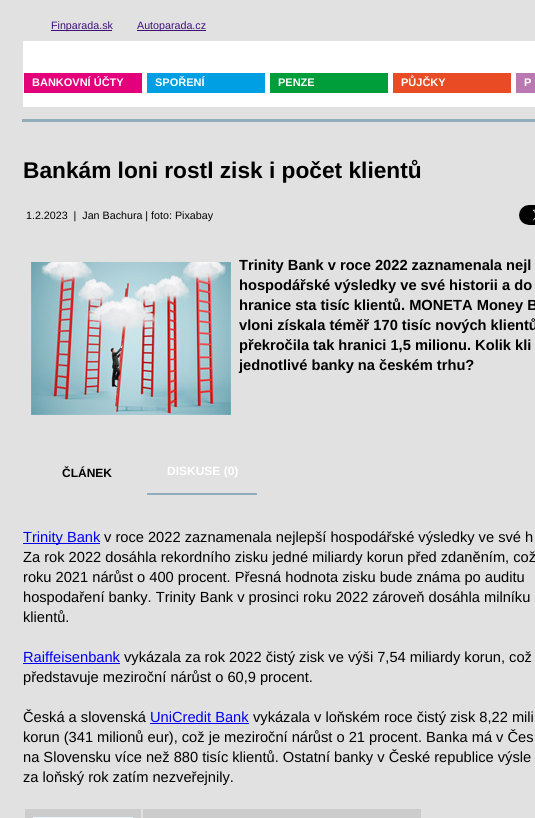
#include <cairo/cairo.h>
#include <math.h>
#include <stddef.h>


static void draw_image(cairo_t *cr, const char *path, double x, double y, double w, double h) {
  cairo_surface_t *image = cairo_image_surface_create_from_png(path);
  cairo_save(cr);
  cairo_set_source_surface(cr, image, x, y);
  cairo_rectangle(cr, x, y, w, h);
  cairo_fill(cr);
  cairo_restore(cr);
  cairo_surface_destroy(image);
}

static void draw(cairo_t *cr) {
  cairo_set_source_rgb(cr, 225 / 255.0, 225 / 255.0, 225 / 255.0);
  cairo_paint(cr);
  cairo_set_source_rgb(cr, 62 / 255.0, 16 / 255.0, 123 / 255.0);
  cairo_rectangle(cr, 51, 30, 61, 1);
  cairo_fill(cr);
  cairo_rectangle(cr, 137, 30, 69, 1);
  cairo_fill(cr);
  cairo_set_source_rgb(cr, 1, 1, 1);
  cairo_rectangle(cr, 23, 41, 512, 66);
  cairo_fill(cr);
  cairo_set_source_rgb(cr, 228 / 255.0, 0, 123 / 255.0);
  cairo_rectangle(cr, 24, 73, 118, 20);
  cairo_fill(cr);
  cairo_set_source_rgb(cr, 0, 159 / 255.0, 228 / 255.0);
  cairo_rectangle(cr, 147, 73, 118, 20);
  cairo_fill(cr);
  cairo_set_source_rgb(cr, 0, 158 / 255.0, 59 / 255.0);
  cairo_rectangle(cr, 270, 73, 118, 20);
  cairo_fill(cr);
  cairo_set_source_rgb(cr, 233 / 255.0, 76 / 255.0, 36 / 255.0);
  cairo_rectangle(cr, 393, 73, 118, 20);
  cairo_fill(cr);
  cairo_set_source_rgb(cr, 185 / 255.0, 120 / 255.0, 178 / 255.0);
  cairo_rectangle(cr, 516, 73, 19, 20);
  cairo_fill(cr);
  cairo_set_source_rgb(cr, 145 / 255.0, 172 / 255.0, 186 / 255.0);
  cairo_rectangle(cr, 22, 119, 513, 3);
  cairo_fill(cr);
  draw_image(cr, "images/1.png", 519, 205, 16, 20);
  draw_image(cr, "images/2.png", 31, 262, 200, 153);
  cairo_rectangle(cr, 147, 493, 110, 2);
  cairo_fill(cr);
  cairo_set_source_rgb(cr, 0, 0, 238 / 255.0);
  cairo_rectangle(cr, 23, 543, 77, 1);
  cairo_fill(cr);
  cairo_rectangle(cr, 23, 663, 97, 1);
  cairo_fill(cr);
  cairo_rectangle(cr, 150, 723, 99, 1);
  cairo_fill(cr);
  cairo_set_source_rgb(cr, 204 / 255.0, 204 / 255.0, 204 / 255.0);
  cairo_rectangle(cr, 25, 809, 116, 9);
  cairo_fill(cr);
  cairo_set_source_rgb(cr, 232 / 255.0, 247 / 255.0, 254 / 255.0);
  cairo_rectangle(cr, 33, 817, 100, 1);
  cairo_fill(cr);
  cairo_set_source_rgb(cr, 204 / 255.0, 204 / 255.0, 204 / 255.0);
  cairo_rectangle(cr, 143, 809, 278, 9);
  cairo_fill(cr);
  cairo_select_font_face(cr, "Liberation Sans", CAIRO_FONT_SLANT_NORMAL, CAIRO_FONT_WEIGHT_NORMAL);
  cairo_set_font_size(cr, 10.7);
  cairo_set_source_rgb(cr, 62 / 255.0, 16 / 255.0, 123 / 255.0);
  cairo_move_to(cr, 51, 29);
  cairo_show_text(cr, "Finparada.sk");
  cairo_move_to(cr, 137, 29);
  cairo_show_text(cr, "Autoparada.cz");
  cairo_select_font_face(cr, "Liberation Sans", CAIRO_FONT_SLANT_NORMAL, CAIRO_FONT_WEIGHT_BOLD);
  cairo_set_font_size(cr, 11);
  cairo_set_source_rgb(cr, 1, 1, 1);
  cairo_move_to(cr, 32, 86);
  cairo_show_text(cr, "BANKOVNÍ ÚČTY");
  cairo_move_to(cr, 155, 86);
  cairo_show_text(cr, "SPOŘENÍ");
  cairo_move_to(cr, 278, 86);
  cairo_show_text(cr, "PENZE");
  cairo_move_to(cr, 401, 86);
  cairo_show_text(cr, "PŮJČKY");
  cairo_move_to(cr, 524, 86);
  cairo_show_text(cr, "P");
  cairo_set_font_size(cr, 22.7);
  cairo_set_source_rgb(cr, 0, 0, 0);
  cairo_move_to(cr, 23, 178);
  cairo_show_text(cr, "Bankám loni rostl zisk i počet klientů");
  cairo_select_font_face(cr, "Liberation Sans", CAIRO_FONT_SLANT_NORMAL, CAIRO_FONT_WEIGHT_NORMAL);
  cairo_set_font_size(cr, 10.7);
  cairo_move_to(cr, 26, 219);
  cairo_show_text(cr, "1.2.2023  |  Jan Bachura | foto: Pixabay");
  cairo_select_font_face(cr, "Liberation Sans", CAIRO_FONT_SLANT_NORMAL, CAIRO_FONT_WEIGHT_BOLD);
  cairo_set_font_size(cr, 14.65);
  cairo_move_to(cr, 239, 270);
  cairo_show_text(cr, "Trinity Bank v roce 2022 zaznamenala nejl");
  cairo_move_to(cr, 239, 290);
  cairo_show_text(cr, "hospodářské výsledky ve své historii a do");
  cairo_move_to(cr, 239, 310);
  cairo_show_text(cr, "hranice sta tisíc klientů. MONETA Money B");
  cairo_move_to(cr, 239, 330);
  cairo_show_text(cr, "vloni získala téměř 170 tisíc nových klientů");
  cairo_move_to(cr, 239, 350);
  cairo_show_text(cr, "překročila tak hranici 1,5 milionu. Kolik kli");
  cairo_move_to(cr, 239, 370);
  cairo_show_text(cr, "jednotlivé banky na českém trhu?");
  cairo_set_font_size(cr, 12);
  cairo_move_to(cr, 62, 477);
  cairo_show_text(cr, "ČLÁNEK");
  cairo_set_source_rgb(cr, 1, 1, 1);
  cairo_move_to(cr, 167, 475);
  cairo_show_text(cr, "DISKUSE (0)");
  cairo_select_font_face(cr, "Liberation Sans", CAIRO_FONT_SLANT_NORMAL, CAIRO_FONT_WEIGHT_NORMAL);
  cairo_set_font_size(cr, 14.65);
  cairo_set_source_rgb(cr, 0, 0, 238 / 255.0);
  cairo_move_to(cr, 23, 542);
  cairo_show_text(cr, "Trinity Bank");
  cairo_set_source_rgb(cr, 0, 0, 0);
  cairo_move_to(cr, 104, 542);
  cairo_show_text(cr, "v roce 2022 zaznamenala nejlepší hospodářské výsledky ve své h");
  cairo_move_to(cr, 23, 562);
  cairo_show_text(cr, "Za rok 2022 dosáhla rekordního zisku jedné miliardy korun před zdaněním, což");
  cairo_move_to(cr, 23, 582);
  cairo_show_text(cr, "roku 2021 nárůst o 400 procent. Přesná hodnota zisku bude známa po auditu");
  cairo_move_to(cr, 23, 602);
  cairo_show_text(cr, "hospodaření banky. Trinity Bank v prosinci roku 2022 zároveň dosáhla milníku");
  cairo_move_to(cr, 23, 622);
  cairo_show_text(cr, "klientů.");
  cairo_set_source_rgb(cr, 0, 0, 238 / 255.0);
  cairo_move_to(cr, 23, 662);
  cairo_show_text(cr, "Raiffeisenbank");
  cairo_set_source_rgb(cr, 0, 0, 0);
  cairo_move_to(cr, 124, 662);
  cairo_show_text(cr, "vykázala za rok 2022 čistý zisk ve výši 7,54 miliardy korun, což");
  cairo_move_to(cr, 23, 682);
  cairo_show_text(cr, "představuje meziroční nárůst o 60,9 procent.");
  cairo_move_to(cr, 23, 722);
  cairo_show_text(cr, "Česká a slovenská");
  cairo_set_source_rgb(cr, 0, 0, 238 / 255.0);
  cairo_move_to(cr, 150, 722);
  cairo_show_text(cr, "UniCredit Bank");
  cairo_set_source_rgb(cr, 0, 0, 0);
  cairo_move_to(cr, 253, 722);
  cairo_show_text(cr, "vykázala v loňském roce čistý zisk 8,22 mili");
  cairo_move_to(cr, 23, 742);
  cairo_show_text(cr, "korun (341 milionů eur), což je meziroční nárůst o 21 procent. Banka má v Čes");
  cairo_move_to(cr, 23, 762);
  cairo_show_text(cr, "na Slovensku více než 880 tisíc klientů. Ostatní banky v České republice výsle");
  cairo_move_to(cr, 23, 782);
  cairo_show_text(cr, "za loňský rok zatím nezveřejnily.");
}

int main(void) {
  cairo_surface_t *surface = cairo_image_surface_create(CAIRO_FORMAT_RGB24, 535, 818);
  cairo_t *cr = cairo_create(surface);
  cairo_font_options_t *options = cairo_font_options_create();
  cairo_font_options_set_hint_metrics(options, CAIRO_HINT_METRICS_OFF);
  cairo_font_options_set_hint_style(options, CAIRO_HINT_STYLE_NONE);
  cairo_set_font_options(cr, options);
  cairo_set_miter_limit(cr, 4);
  draw(cr);
  cairo_surface_write_to_png(surface, "out.png");
  cairo_font_options_destroy(options);
  cairo_destroy(cr);
  cairo_surface_destroy(surface);
  return 0;
}
